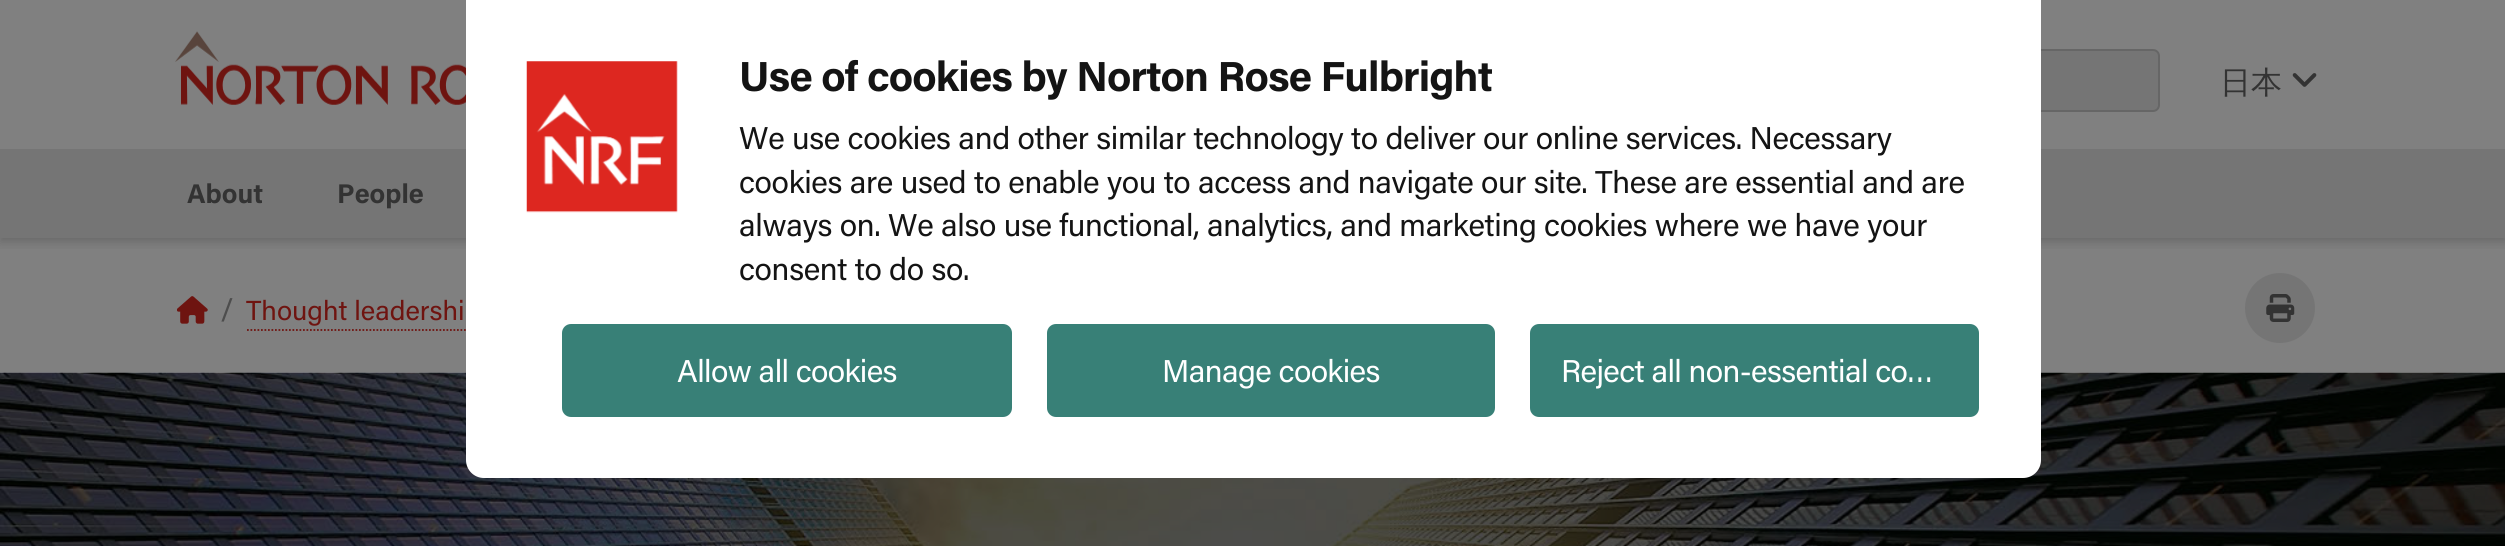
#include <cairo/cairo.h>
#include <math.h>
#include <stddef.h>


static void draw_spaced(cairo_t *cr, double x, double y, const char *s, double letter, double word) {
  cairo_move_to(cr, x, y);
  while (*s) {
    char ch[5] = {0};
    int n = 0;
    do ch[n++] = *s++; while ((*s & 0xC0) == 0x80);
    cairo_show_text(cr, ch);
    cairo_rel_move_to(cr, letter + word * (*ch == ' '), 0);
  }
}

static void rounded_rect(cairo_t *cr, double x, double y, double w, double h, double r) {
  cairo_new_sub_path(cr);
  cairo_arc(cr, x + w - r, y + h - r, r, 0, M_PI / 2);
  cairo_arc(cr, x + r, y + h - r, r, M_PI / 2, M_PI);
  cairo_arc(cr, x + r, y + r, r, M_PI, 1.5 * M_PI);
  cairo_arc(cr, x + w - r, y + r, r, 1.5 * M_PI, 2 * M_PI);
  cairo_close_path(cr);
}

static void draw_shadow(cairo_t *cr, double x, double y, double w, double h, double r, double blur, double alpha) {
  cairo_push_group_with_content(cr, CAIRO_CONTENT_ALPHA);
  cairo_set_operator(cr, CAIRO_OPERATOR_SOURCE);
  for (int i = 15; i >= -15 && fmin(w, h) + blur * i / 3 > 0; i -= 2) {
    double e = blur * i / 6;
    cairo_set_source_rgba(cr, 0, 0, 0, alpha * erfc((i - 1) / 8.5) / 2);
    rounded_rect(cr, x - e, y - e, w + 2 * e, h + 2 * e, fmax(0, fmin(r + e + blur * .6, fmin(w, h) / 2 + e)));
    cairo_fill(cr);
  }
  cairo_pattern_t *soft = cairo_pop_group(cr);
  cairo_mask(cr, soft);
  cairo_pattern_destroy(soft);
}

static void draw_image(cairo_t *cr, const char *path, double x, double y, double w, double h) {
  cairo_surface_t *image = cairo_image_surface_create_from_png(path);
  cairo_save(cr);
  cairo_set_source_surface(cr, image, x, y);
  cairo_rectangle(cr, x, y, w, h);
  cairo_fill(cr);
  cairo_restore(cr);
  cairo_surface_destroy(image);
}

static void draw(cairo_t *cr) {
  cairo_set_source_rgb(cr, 128 / 255.0, 128 / 255.0, 128 / 255.0);
  cairo_paint(cr);
  cairo_save(cr);
  cairo_rectangle(cr, 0, 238, 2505, 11);
  cairo_clip(cr);
  cairo_set_source_rgb(cr, 51 / 255.0, 51 / 255.0, 51 / 255.0);
  draw_shadow(cr, 0, 4, 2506, 238, 0, 5, 0.3);
  cairo_restore(cr);
  cairo_set_source_rgb(cr, 117 / 255.0, 117 / 255.0, 117 / 255.0);
  rounded_rect(cr, 1725, 50, 434, 61, 6);
  cairo_fill_preserve(cr);
  cairo_set_source_rgb(cr, 102 / 255.0, 102 / 255.0, 102 / 255.0);
  cairo_stroke(cr);
  cairo_set_source_rgb(cr, 117 / 255.0, 117 / 255.0, 117 / 255.0);
  cairo_rectangle(cr, 0, 149, 2505, 89);
  cairo_fill(cr);
  cairo_new_path(cr);
  cairo_move_to(cr, 247, 330);
  cairo_line_to(cr, 481, 330);
  cairo_set_source_rgb(cr, 111 / 255.0, 20 / 255.0, 16 / 255.0);
  cairo_set_line_width(cr, 1.8);
  cairo_set_dash(cr, (double[]){1.75, 1.75}, 2, 0);
  cairo_stroke(cr);
  draw_image(cr, "images/6.png", 0, 372, 2505, 174);
  cairo_set_source_rgb(cr, 1, 1, 1);
  cairo_new_path(cr);
  cairo_move_to(cr, 466, 0);
  cairo_line_to(cr, 2041, 0);
  cairo_line_to(cr, 2041, 460);
  cairo_curve_to(cr, 2041, 470, 2033, 478, 2023, 478);
  cairo_line_to(cr, 484, 478);
  cairo_curve_to(cr, 474, 478, 466, 470, 466, 460);
  cairo_close_path(cr);
  cairo_fill(cr);
  draw_image(cr, "images/1.png", 526, 61, 152, 152);
  cairo_set_source_rgb(cr, 56 / 255.0, 128 / 255.0, 119 / 255.0);
  rounded_rect(cr, 562, 324, 450, 93, 9);
  cairo_fill(cr);
  rounded_rect(cr, 1047, 324, 448, 93, 9);
  cairo_fill(cr);
  rounded_rect(cr, 1530, 324, 449, 93, 9);
  cairo_fill(cr);
  draw_image(cr, "images/2.png", 175, 31, 291, 74);
  draw_image(cr, "images/3.png", 2292, 73, 25, 14);
  draw_image(cr, "images/4.png", 177, 296, 31, 28);
  cairo_set_source_rgb(cr, 117 / 255.0, 117 / 255.0, 117 / 255.0);
  cairo_arc(cr, 2280, 308, 35, 0, 2 * M_PI);
  cairo_fill(cr);
  draw_image(cr, "images/5.png", 2266, 294, 29, 28);
  cairo_select_font_face(cr, "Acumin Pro", CAIRO_FONT_SLANT_NORMAL, CAIRO_FONT_WEIGHT_BOLD);
  cairo_set_font_size(cr, 42);
  cairo_set_source_rgb(cr, 20 / 255.0, 20 / 255.0, 20 / 255.0);
  draw_spaced(cr, 739, 91, "Use of cookies by Norton Rose Fulbright", -0.85, 0);
  cairo_select_font_face(cr, "Acumin Pro", CAIRO_FONT_SLANT_NORMAL, CAIRO_FONT_WEIGHT_NORMAL);
  cairo_set_font_size(cr, 31.5);
  draw_spaced(cr, 739, 149, "We use cookies and other similar technology to deliver our online services. Necessary", -0.32, 0);
  draw_spaced(cr, 739, 193, "cookies are used to enable you to access and navigate our site. These are essential and are", -0.32, 0);
  draw_spaced(cr, 739, 236, "always on. We also use functional, analytics, and marketing cookies where we have your", -0.32, 0);
  draw_spaced(cr, 739, 280, "consent to do so.", -0.32, 0);
  cairo_set_source_rgb(cr, 1, 1, 1);
  draw_spaced(cr, 677, 382, "Allow all cookies", -0.6, 0);
  draw_spaced(cr, 1162, 382, "Manage cookies", -0.6, 0);
  draw_spaced(cr, 1561, 382, "Reject all non-essential co…", -0.6, 0);
  cairo_select_font_face(cr, "WenQuanYi Zen Hei Medium", CAIRO_FONT_SLANT_NORMAL, CAIRO_FONT_WEIGHT_NORMAL);
  cairo_set_font_size(cr, 31);
  cairo_set_source_rgb(cr, 51 / 255.0, 51 / 255.0, 51 / 255.0);
  cairo_move_to(cr, 2220, 93);
  cairo_show_text(cr, "日本");
  cairo_select_font_face(cr, "Acumin Pro", CAIRO_FONT_SLANT_NORMAL, CAIRO_FONT_WEIGHT_BOLD);
  cairo_set_font_size(cr, 27);
  cairo_move_to(cr, 187, 203);
  cairo_show_text(cr, "About");
  cairo_move_to(cr, 337, 203);
  cairo_show_text(cr, "People");
  cairo_select_font_face(cr, "Acumin Pro", CAIRO_FONT_SLANT_NORMAL, CAIRO_FONT_WEIGHT_NORMAL);
  cairo_set_font_size(cr, 31);
  cairo_set_source_rgb(cr, 77 / 255.0, 77 / 255.0, 77 / 255.0);
  cairo_move_to(cr, 220, 320);
  cairo_show_text(cr, "/");
  cairo_set_font_size(cr, 27.5);
  cairo_set_source_rgb(cr, 111 / 255.0, 20 / 255.0, 16 / 255.0);
  cairo_move_to(cr, 246, 320);
  cairo_show_text(cr, "Thought leadershi");
}

int main(void) {
  cairo_surface_t *surface = cairo_image_surface_create(CAIRO_FORMAT_RGB24, 2505, 546);
  cairo_t *cr = cairo_create(surface);
  cairo_font_options_t *options = cairo_font_options_create();
  cairo_font_options_set_hint_metrics(options, CAIRO_HINT_METRICS_OFF);
  cairo_font_options_set_hint_style(options, CAIRO_HINT_STYLE_NONE);
  cairo_set_font_options(cr, options);
  cairo_set_miter_limit(cr, 4);
  draw(cr);
  cairo_surface_write_to_png(surface, "out.png");
  cairo_font_options_destroy(options);
  cairo_destroy(cr);
  cairo_surface_destroy(surface);
  return 0;
}
